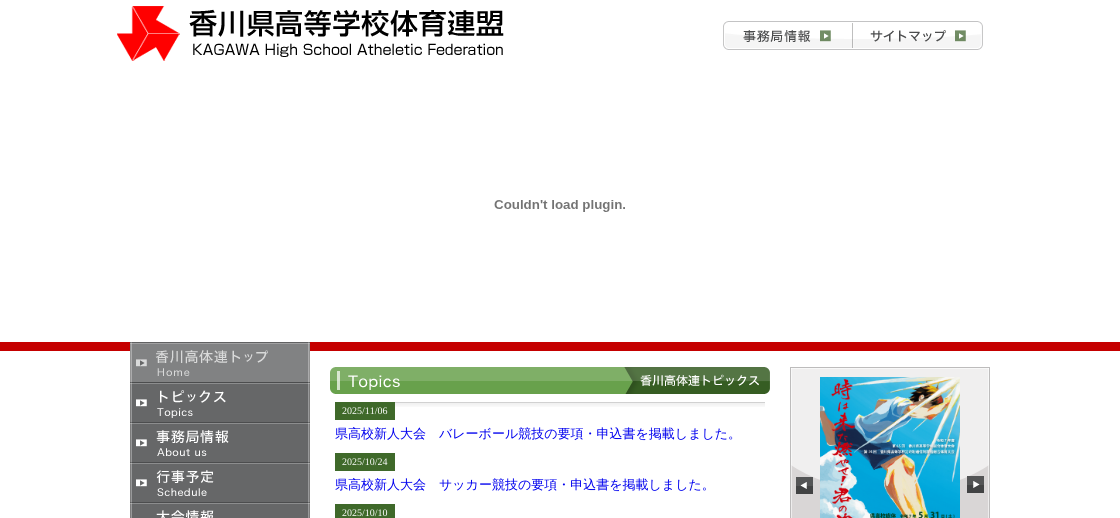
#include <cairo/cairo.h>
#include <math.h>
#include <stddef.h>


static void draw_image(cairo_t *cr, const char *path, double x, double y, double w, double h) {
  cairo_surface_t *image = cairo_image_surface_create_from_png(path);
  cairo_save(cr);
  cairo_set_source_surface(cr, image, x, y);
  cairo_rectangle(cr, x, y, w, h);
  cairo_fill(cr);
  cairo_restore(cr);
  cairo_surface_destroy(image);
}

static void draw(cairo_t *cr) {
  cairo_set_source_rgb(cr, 1, 1, 1);
  cairo_paint(cr);
  cairo_set_source_rgb(cr, 197 / 255.0, 0, 0);
  cairo_rectangle(cr, 0, 342, 1120, 9);
  cairo_fill(cr);
  draw_image(cr, "images/1.png", 117, 6, 387, 55);
  draw_image(cr, "images/2.png", 723, 21, 130, 29);
  draw_image(cr, "images/3.png", 853, 21, 130, 29);
  draw_image(cr, "images/4.png", 494, 200, 131, 12);
  draw_image(cr, "images/5.png", 130, 342, 180, 40);
  draw_image(cr, "images/6.png", 130, 382, 180, 40);
  draw_image(cr, "images/7.png", 130, 422, 180, 40);
  draw_image(cr, "images/8.png", 130, 462, 180, 40);
  draw_image(cr, "images/9.png", 130, 502, 180, 16);
  draw_image(cr, "images/10.png", 330, 367, 440, 27);
  draw_image(cr, "images/11.png", 395, 402, 370, 5);
  cairo_set_source_rgb(cr, 63 / 255.0, 105 / 255.0, 42 / 255.0);
  cairo_rectangle(cr, 335, 402, 60, 18);
  cairo_fill(cr);
  cairo_rectangle(cr, 335, 453, 60, 18);
  cairo_fill(cr);
  cairo_rectangle(cr, 335, 504, 60, 14);
  cairo_fill(cr);
  draw_image(cr, "images/12.png", 790, 367, 200, 151);
  cairo_select_font_face(cr, "Liberation Serif", CAIRO_FONT_SLANT_NORMAL, CAIRO_FONT_WEIGHT_NORMAL);
  cairo_set_font_size(cr, 10);
  cairo_set_source_rgb(cr, 1, 1, 1);
  cairo_move_to(cr, 342, 414);
  cairo_show_text(cr, "2025/11/06");
  cairo_select_font_face(cr, "WenQuanYi Zen Hei Medium", CAIRO_FONT_SLANT_NORMAL, CAIRO_FONT_WEIGHT_NORMAL);
  cairo_set_font_size(cr, 13);
  cairo_set_source_rgb(cr, 0, 0, 238 / 255.0);
  cairo_move_to(cr, 335, 438);
  cairo_show_text(cr, "県高校新人大会　バレーボール競技の要項・申込書を掲載しました。");
  cairo_select_font_face(cr, "Liberation Serif", CAIRO_FONT_SLANT_NORMAL, CAIRO_FONT_WEIGHT_NORMAL);
  cairo_set_font_size(cr, 10);
  cairo_set_source_rgb(cr, 1, 1, 1);
  cairo_move_to(cr, 342, 465);
  cairo_show_text(cr, "2025/10/24");
  cairo_select_font_face(cr, "WenQuanYi Zen Hei Medium", CAIRO_FONT_SLANT_NORMAL, CAIRO_FONT_WEIGHT_NORMAL);
  cairo_set_font_size(cr, 13);
  cairo_set_source_rgb(cr, 0, 0, 238 / 255.0);
  cairo_move_to(cr, 335, 489);
  cairo_show_text(cr, "県高校新人大会　サッカー競技の要項・申込書を掲載しました。");
  cairo_select_font_face(cr, "Liberation Serif", CAIRO_FONT_SLANT_NORMAL, CAIRO_FONT_WEIGHT_NORMAL);
  cairo_set_font_size(cr, 10);
  cairo_set_source_rgb(cr, 1, 1, 1);
  cairo_move_to(cr, 342, 516);
  cairo_show_text(cr, "2025/10/10");
}

int main(void) {
  cairo_surface_t *surface = cairo_image_surface_create(CAIRO_FORMAT_RGB24, 1120, 518);
  cairo_t *cr = cairo_create(surface);
  cairo_font_options_t *options = cairo_font_options_create();
  cairo_font_options_set_hint_metrics(options, CAIRO_HINT_METRICS_OFF);
  cairo_font_options_set_hint_style(options, CAIRO_HINT_STYLE_NONE);
  cairo_set_font_options(cr, options);
  cairo_set_miter_limit(cr, 4);
  draw(cr);
  cairo_surface_write_to_png(surface, "out.png");
  cairo_font_options_destroy(options);
  cairo_destroy(cr);
  cairo_surface_destroy(surface);
  return 0;
}
